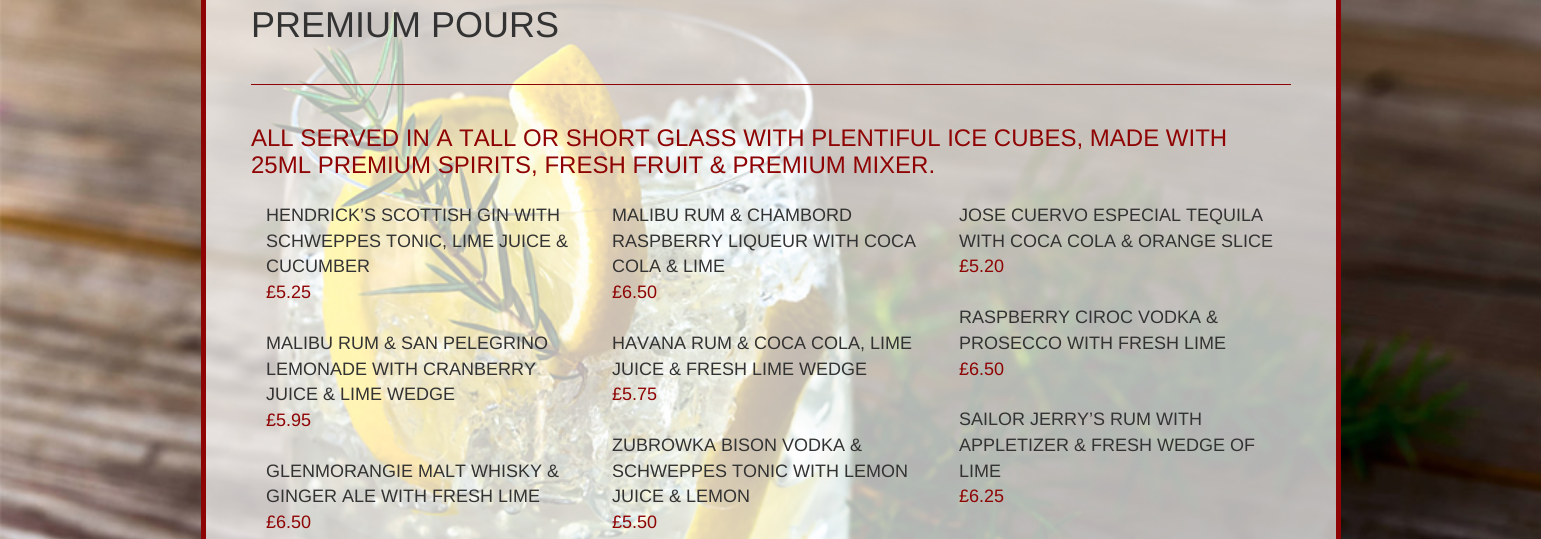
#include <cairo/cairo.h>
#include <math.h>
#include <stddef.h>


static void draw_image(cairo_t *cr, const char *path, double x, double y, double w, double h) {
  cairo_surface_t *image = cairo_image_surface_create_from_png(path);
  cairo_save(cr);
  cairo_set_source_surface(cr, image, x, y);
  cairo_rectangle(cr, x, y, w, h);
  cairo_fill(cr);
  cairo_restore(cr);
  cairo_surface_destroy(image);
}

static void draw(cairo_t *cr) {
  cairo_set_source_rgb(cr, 1, 1, 1);
  cairo_paint(cr);
  draw_image(cr, "images/1.png", 0, 0, 1541, 539);
  cairo_set_source_rgba(cr, 1, 1, 1, 0.7);
  cairo_rectangle(cr, 203.5, -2.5, 1135, 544);
  cairo_fill_preserve(cr);
  cairo_set_source_rgb(cr, 142 / 255.0, 3 / 255.0, 3 / 255.0);
  cairo_set_line_width(cr, 5);
  cairo_stroke(cr);
  cairo_rectangle(cr, 251, 84, 1040, 1);
  cairo_fill(cr);
  cairo_select_font_face(cr, "Liberation Sans", CAIRO_FONT_SLANT_NORMAL, CAIRO_FONT_WEIGHT_NORMAL);
  cairo_set_font_size(cr, 36);
  cairo_set_source_rgb(cr, 51 / 255.0, 51 / 255.0, 51 / 255.0);
  cairo_move_to(cr, 251, 37);
  cairo_show_text(cr, "PREMIUM POURS");
  cairo_set_font_size(cr, 24);
  cairo_set_source_rgb(cr, 142 / 255.0, 3 / 255.0, 3 / 255.0);
  cairo_move_to(cr, 251, 146);
  cairo_show_text(cr, "ALL SERVED IN A TALL OR SHORT GLASS WITH PLENTIFUL ICE CUBES, MADE WITH");
  cairo_move_to(cr, 251, 173);
  cairo_show_text(cr, "25ML PREMIUM SPIRITS, FRESH FRUIT & PREMIUM MIXER.");
  cairo_set_font_size(cr, 18);
  cairo_set_source_rgb(cr, 51 / 255.0, 51 / 255.0, 51 / 255.0);
  cairo_move_to(cr, 266, 221);
  cairo_show_text(cr, "HENDRICK’S SCOTTISH GIN WITH");
  cairo_move_to(cr, 266, 247);
  cairo_show_text(cr, "SCHWEPPES TONIC, LIME JUICE &");
  cairo_move_to(cr, 266, 272);
  cairo_show_text(cr, "CUCUMBER");
  cairo_set_source_rgb(cr, 142 / 255.0, 3 / 255.0, 3 / 255.0);
  cairo_move_to(cr, 266, 298);
  cairo_show_text(cr, "£5.25");
  cairo_set_source_rgb(cr, 51 / 255.0, 51 / 255.0, 51 / 255.0);
  cairo_move_to(cr, 266, 349);
  cairo_show_text(cr, "MALIBU RUM & SAN PELEGRINO");
  cairo_move_to(cr, 266, 375);
  cairo_show_text(cr, "LEMONADE WITH CRANBERRY");
  cairo_move_to(cr, 266, 400);
  cairo_show_text(cr, "JUICE & LIME WEDGE");
  cairo_set_source_rgb(cr, 142 / 255.0, 3 / 255.0, 3 / 255.0);
  cairo_move_to(cr, 266, 426);
  cairo_show_text(cr, "£5.95");
  cairo_set_source_rgb(cr, 51 / 255.0, 51 / 255.0, 51 / 255.0);
  cairo_move_to(cr, 266, 477);
  cairo_show_text(cr, "GLENMORANGIE MALT WHISKY &");
  cairo_move_to(cr, 266, 502);
  cairo_show_text(cr, "GINGER ALE WITH FRESH LIME");
  cairo_set_source_rgb(cr, 142 / 255.0, 3 / 255.0, 3 / 255.0);
  cairo_move_to(cr, 266, 528);
  cairo_show_text(cr, "£6.50");
  cairo_set_source_rgb(cr, 51 / 255.0, 51 / 255.0, 51 / 255.0);
  cairo_move_to(cr, 612, 221);
  cairo_show_text(cr, "MALIBU RUM & CHAMBORD");
  cairo_move_to(cr, 612, 247);
  cairo_show_text(cr, "RASPBERRY LIQUEUR WITH COCA");
  cairo_move_to(cr, 612, 272);
  cairo_show_text(cr, "COLA & LIME");
  cairo_set_source_rgb(cr, 142 / 255.0, 3 / 255.0, 3 / 255.0);
  cairo_move_to(cr, 612, 298);
  cairo_show_text(cr, "£6.50");
  cairo_set_source_rgb(cr, 51 / 255.0, 51 / 255.0, 51 / 255.0);
  cairo_move_to(cr, 612, 349);
  cairo_show_text(cr, "HAVANA RUM & COCA COLA, LIME");
  cairo_move_to(cr, 612, 375);
  cairo_show_text(cr, "JUICE & FRESH LIME WEDGE");
  cairo_set_source_rgb(cr, 142 / 255.0, 3 / 255.0, 3 / 255.0);
  cairo_move_to(cr, 612, 400);
  cairo_show_text(cr, "£5.75");
  cairo_set_source_rgb(cr, 51 / 255.0, 51 / 255.0, 51 / 255.0);
  cairo_move_to(cr, 612, 451);
  cairo_show_text(cr, "ZUBROWKA BISON VODKA &");
  cairo_move_to(cr, 612, 477);
  cairo_show_text(cr, "SCHWEPPES TONIC WITH LEMON");
  cairo_move_to(cr, 612, 502);
  cairo_show_text(cr, "JUICE & LEMON");
  cairo_set_source_rgb(cr, 142 / 255.0, 3 / 255.0, 3 / 255.0);
  cairo_move_to(cr, 612, 528);
  cairo_show_text(cr, "£5.50");
  cairo_set_source_rgb(cr, 51 / 255.0, 51 / 255.0, 51 / 255.0);
  cairo_move_to(cr, 959, 221);
  cairo_show_text(cr, "JOSE CUERVO ESPECIAL TEQUILA");
  cairo_move_to(cr, 959, 247);
  cairo_show_text(cr, "WITH COCA COLA & ORANGE SLICE");
  cairo_set_source_rgb(cr, 142 / 255.0, 3 / 255.0, 3 / 255.0);
  cairo_move_to(cr, 959, 272);
  cairo_show_text(cr, "£5.20");
  cairo_set_source_rgb(cr, 51 / 255.0, 51 / 255.0, 51 / 255.0);
  cairo_move_to(cr, 959, 323);
  cairo_show_text(cr, "RASPBERRY CIROC VODKA &");
  cairo_move_to(cr, 959, 349);
  cairo_show_text(cr, "PROSECCO WITH FRESH LIME");
  cairo_set_source_rgb(cr, 142 / 255.0, 3 / 255.0, 3 / 255.0);
  cairo_move_to(cr, 959, 375);
  cairo_show_text(cr, "£6.50");
  cairo_set_source_rgb(cr, 51 / 255.0, 51 / 255.0, 51 / 255.0);
  cairo_move_to(cr, 959, 425);
  cairo_show_text(cr, "SAILOR JERRY’S RUM WITH");
  cairo_move_to(cr, 959, 451);
  cairo_show_text(cr, "APPLETIZER & FRESH WEDGE OF");
  cairo_move_to(cr, 959, 477);
  cairo_show_text(cr, "LIME");
  cairo_set_source_rgb(cr, 142 / 255.0, 3 / 255.0, 3 / 255.0);
  cairo_move_to(cr, 959, 502);
  cairo_show_text(cr, "£6.25");
}

int main(void) {
  cairo_surface_t *surface = cairo_image_surface_create(CAIRO_FORMAT_RGB24, 1541, 539);
  cairo_t *cr = cairo_create(surface);
  cairo_font_options_t *options = cairo_font_options_create();
  cairo_font_options_set_hint_metrics(options, CAIRO_HINT_METRICS_OFF);
  cairo_font_options_set_hint_style(options, CAIRO_HINT_STYLE_NONE);
  cairo_set_font_options(cr, options);
  cairo_set_miter_limit(cr, 4);
  draw(cr);
  cairo_surface_write_to_png(surface, "out.png");
  cairo_font_options_destroy(options);
  cairo_destroy(cr);
  cairo_surface_destroy(surface);
  return 0;
}
